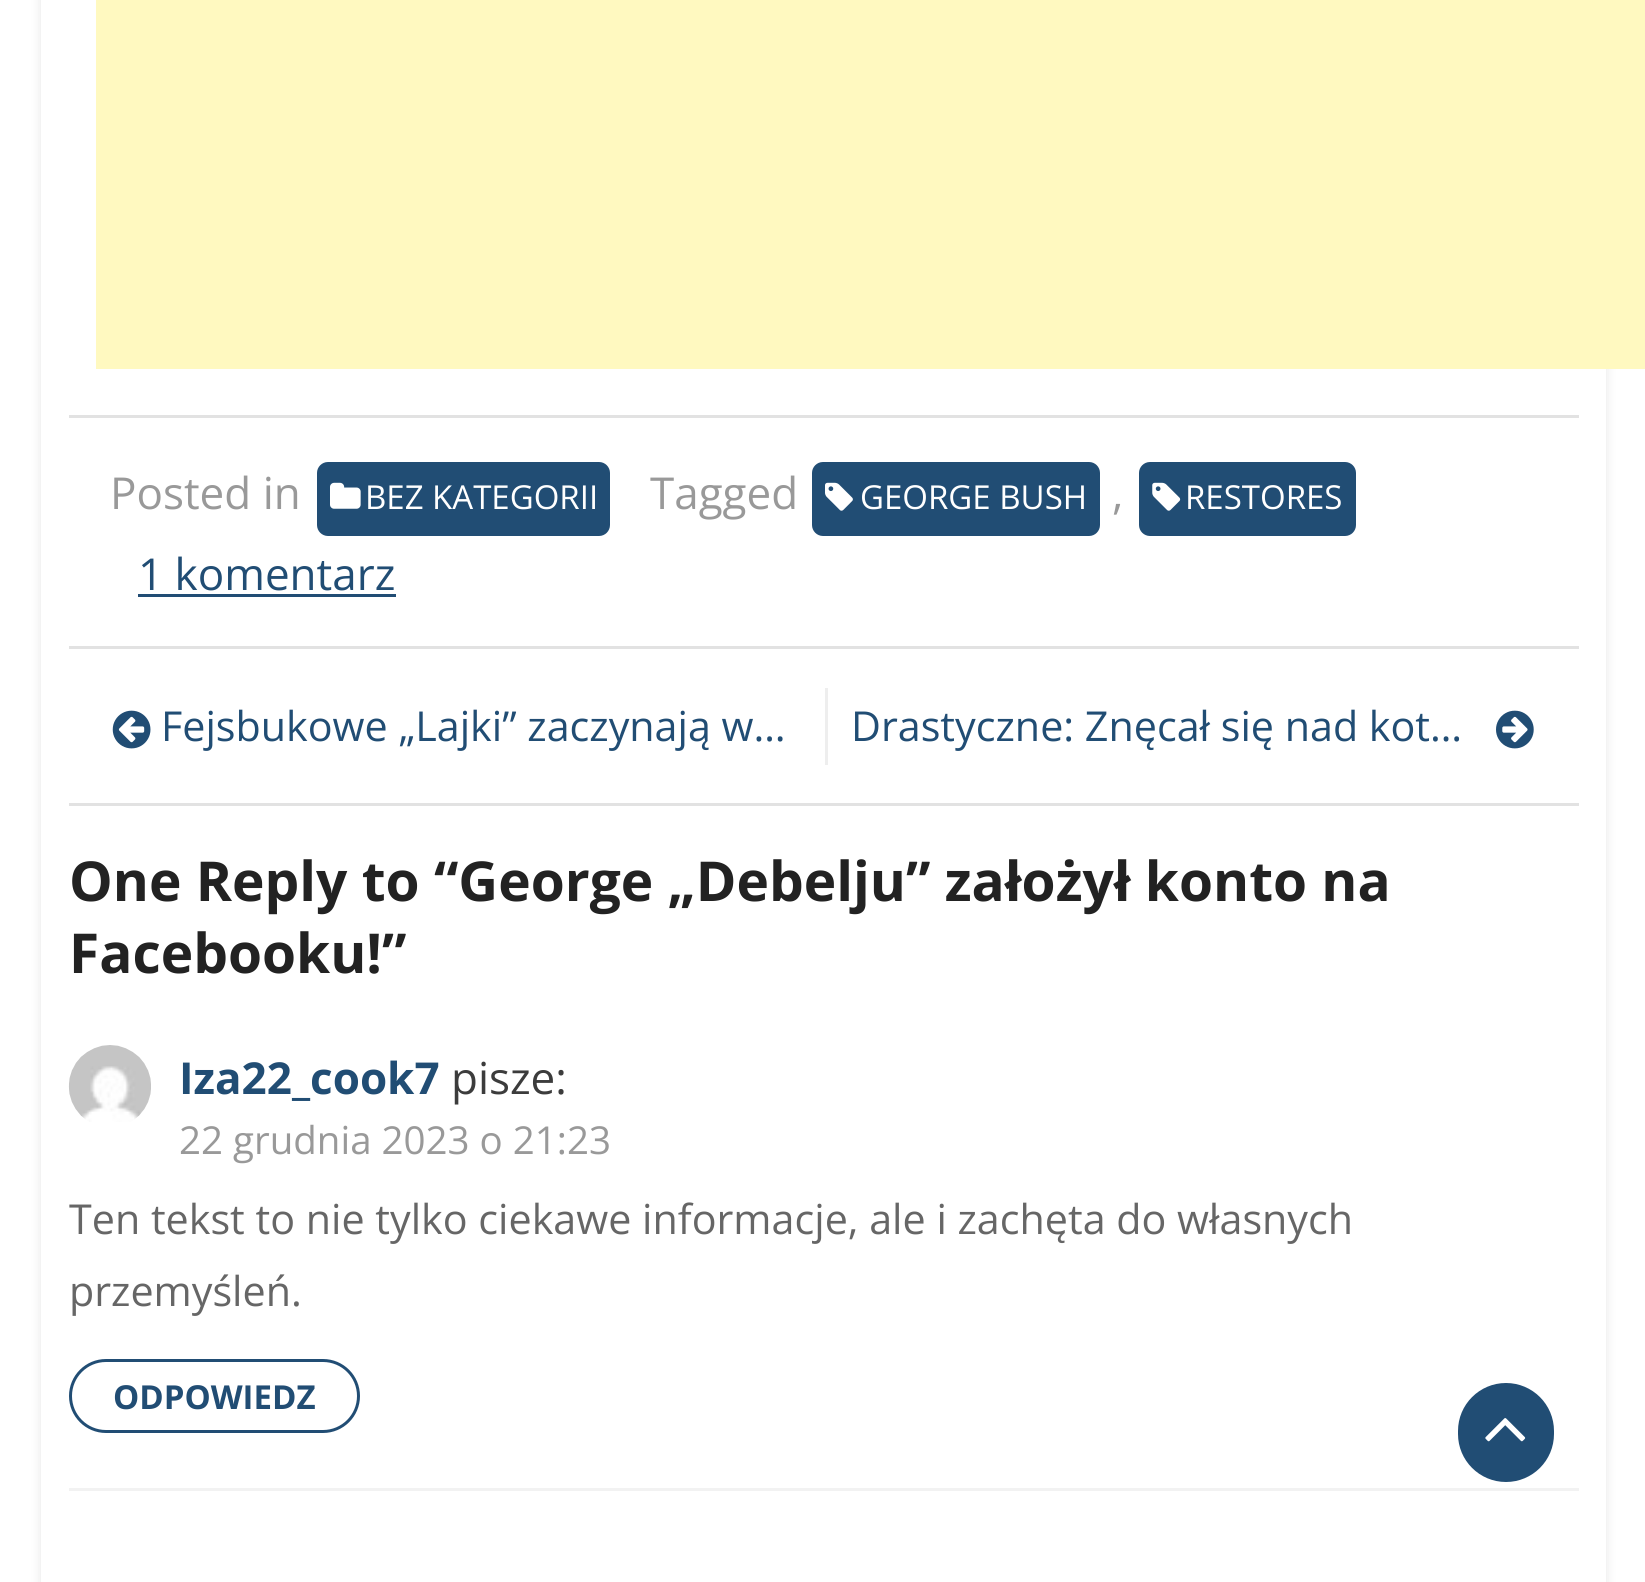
#include <cairo/cairo.h>
#include <math.h>
#include <stddef.h>


static void rounded_rect(cairo_t *cr, double x, double y, double w, double h, double r) {
  cairo_new_sub_path(cr);
  cairo_arc(cr, x + w - r, y + h - r, r, 0, M_PI / 2);
  cairo_arc(cr, x + r, y + h - r, r, M_PI / 2, M_PI);
  cairo_arc(cr, x + r, y + r, r, M_PI, 1.5 * M_PI);
  cairo_arc(cr, x + w - r, y + r, r, 1.5 * M_PI, 2 * M_PI);
  cairo_close_path(cr);
}

static void draw_shadow(cairo_t *cr, double x, double y, double w, double h, double r, double blur, double alpha) {
  cairo_push_group_with_content(cr, CAIRO_CONTENT_ALPHA);
  cairo_set_operator(cr, CAIRO_OPERATOR_SOURCE);
  for (int i = 15; i >= -15 && fmin(w, h) + blur * i / 3 > 0; i -= 2) {
    double e = blur * i / 6;
    cairo_set_source_rgba(cr, 0, 0, 0, alpha * erfc((i - 1) / 8.5) / 2);
    rounded_rect(cr, x - e, y - e, w + 2 * e, h + 2 * e, fmax(0, fmin(r + e + blur * .6, fmin(w, h) / 2 + e)));
    cairo_fill(cr);
  }
  cairo_pattern_t *soft = cairo_pop_group(cr);
  cairo_mask(cr, soft);
  cairo_pattern_destroy(soft);
}

static void draw_image(cairo_t *cr, const char *path, double x, double y, double w, double h) {
  cairo_surface_t *image = cairo_image_surface_create_from_png(path);
  cairo_save(cr);
  cairo_set_source_surface(cr, image, x, y);
  cairo_rectangle(cr, x, y, w, h);
  cairo_fill(cr);
  cairo_restore(cr);
  cairo_surface_destroy(image);
}

static void draw(cairo_t *cr) {
  cairo_set_source_rgb(cr, 1, 1, 1);
  cairo_paint(cr);
  cairo_set_source_rgb(cr, 0, 0, 0);
  draw_shadow(cr, 41, -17, 1565, 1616, 0, 5.5, 0.1);
  cairo_set_source_rgb(cr, 1, 1, 1);
  cairo_rectangle(cr, 41, 0, 1565, 1582);
  cairo_fill(cr);
  cairo_set_source_rgb(cr, 226 / 255.0, 226 / 255.0, 226 / 255.0);
  cairo_rectangle(cr, 69, 646, 1510, 3);
  cairo_fill(cr);
  cairo_set_source_rgb(cr, 1, 249 / 255.0, 192 / 255.0);
  cairo_rectangle(cr, 96, 0, 1549, 369);
  cairo_fill(cr);
  cairo_set_source_rgb(cr, 226 / 255.0, 226 / 255.0, 226 / 255.0);
  cairo_rectangle(cr, 69, 415, 1510, 3);
  cairo_fill(cr);
  cairo_set_source_rgb(cr, 33 / 255.0, 77 / 255.0, 116 / 255.0);
  rounded_rect(cr, 315.5, 460.5, 296, 77, 12.5);
  cairo_fill_preserve(cr);
  cairo_set_source_rgb(cr, 1, 1, 1);
  cairo_set_line_width(cr, 3);
  cairo_stroke(cr);
  draw_image(cr, "images/1.png", 330, 482, 31, 27);
  cairo_set_source_rgb(cr, 33 / 255.0, 77 / 255.0, 116 / 255.0);
  rounded_rect(cr, 810.5, 460.5, 291, 77, 12.5);
  cairo_fill_preserve(cr);
  cairo_set_source_rgb(cr, 1, 1, 1);
  cairo_stroke(cr);
  draw_image(cr, "images/2.png", 825, 482, 28, 29);
  cairo_set_source_rgb(cr, 33 / 255.0, 77 / 255.0, 116 / 255.0);
  rounded_rect(cr, 1137.5, 460.5, 220, 77, 12.5);
  cairo_fill_preserve(cr);
  cairo_set_source_rgb(cr, 1, 1, 1);
  cairo_stroke(cr);
  draw_image(cr, "images/3.png", 1152, 482, 29, 29);
  cairo_set_source_rgb(cr, 33 / 255.0, 77 / 255.0, 116 / 255.0);
  cairo_rectangle(cr, 138, 594, 258, 3);
  cairo_fill(cr);
  cairo_set_source_rgb(cr, 226 / 255.0, 226 / 255.0, 226 / 255.0);
  cairo_rectangle(cr, 69, 803, 1510, 3);
  cairo_fill(cr);
  cairo_set_source_rgb(cr, 238 / 255.0, 238 / 255.0, 238 / 255.0);
  cairo_rectangle(cr, 825, 688, 3, 77);
  cairo_fill(cr);
  draw_image(cr, "images/4.png", 112, 710, 39, 39);
  draw_image(cr, "images/5.png", 1496, 710, 38, 39);
  cairo_set_source_rgb(cr, 242 / 255.0, 242 / 255.0, 242 / 255.0);
  cairo_rectangle(cr, 69, 1488, 1510, 3);
  cairo_fill(cr);
  draw_image(cr, "images/6.png", 68, 1045, 83, 77);
  rounded_rect(cr, 70.5, 1360.5, 288, 71, 35.5);
  cairo_set_source_rgb(cr, 33 / 255.0, 77 / 255.0, 116 / 255.0);
  cairo_stroke(cr);
  rounded_rect(cr, 1458, 1383, 96, 99, 48);
  cairo_fill(cr);
  draw_image(cr, "images/7.png", 1485, 1418, 41, 24);
  cairo_select_font_face(cr, "Open Sans", CAIRO_FONT_SLANT_NORMAL, CAIRO_FONT_WEIGHT_NORMAL);
  cairo_set_font_size(cr, 44);
  cairo_set_source_rgb(cr, 153 / 255.0, 153 / 255.0, 153 / 255.0);
  cairo_move_to(cr, 110, 509);
  cairo_show_text(cr, "Posted in");
  cairo_set_font_size(cr, 33);
  cairo_set_source_rgb(cr, 1, 1, 1);
  cairo_move_to(cr, 365, 509);
  cairo_show_text(cr, "BEZ KATEGORII");
  cairo_set_font_size(cr, 44);
  cairo_set_source_rgb(cr, 153 / 255.0, 153 / 255.0, 153 / 255.0);
  cairo_move_to(cr, 650, 509);
  cairo_show_text(cr, "Tagged");
  cairo_set_font_size(cr, 33);
  cairo_set_source_rgb(cr, 1, 1, 1);
  cairo_move_to(cr, 860, 509);
  cairo_show_text(cr, "GEORGE BUSH");
  cairo_set_font_size(cr, 44);
  cairo_set_source_rgb(cr, 153 / 255.0, 153 / 255.0, 153 / 255.0);
  cairo_move_to(cr, 1112, 509);
  cairo_show_text(cr, ",");
  cairo_set_font_size(cr, 33);
  cairo_set_source_rgb(cr, 1, 1, 1);
  cairo_move_to(cr, 1185, 509);
  cairo_show_text(cr, "RESTORES");
  cairo_set_font_size(cr, 44);
  cairo_set_source_rgb(cr, 33 / 255.0, 77 / 255.0, 116 / 255.0);
  cairo_move_to(cr, 138, 590);
  cairo_show_text(cr, "1 komentarz");
  cairo_set_font_size(cr, 41.25);
  cairo_move_to(cr, 161, 741);
  cairo_show_text(cr, "Fejsbukowe „Lajki” zaczynają w…");
  cairo_move_to(cr, 851, 741);
  cairo_show_text(cr, "Drastyczne: Znęcał się nad kot…");
  cairo_select_font_face(cr, "Open Sans", CAIRO_FONT_SLANT_NORMAL, CAIRO_FONT_WEIGHT_BOLD);
  cairo_set_font_size(cr, 55);
  cairo_set_source_rgb(cr, 34 / 255.0, 34 / 255.0, 34 / 255.0);
  cairo_move_to(cr, 69, 901);
  cairo_show_text(cr, "One Reply to “George „Debelju” założył konto na");
  cairo_move_to(cr, 69, 973);
  cairo_show_text(cr, "Facebooku!”");
  cairo_set_font_size(cr, 44);
  cairo_set_source_rgb(cr, 33 / 255.0, 77 / 255.0, 116 / 255.0);
  cairo_move_to(cr, 179, 1094);
  cairo_show_text(cr, "Iza22_cook7");
  cairo_select_font_face(cr, "Open Sans", CAIRO_FONT_SLANT_NORMAL, CAIRO_FONT_WEIGHT_NORMAL);
  cairo_set_source_rgb(cr, 60 / 255.0, 60 / 255.0, 60 / 255.0);
  cairo_move_to(cr, 451, 1094);
  cairo_show_text(cr, "pisze:");
  cairo_set_font_size(cr, 38.5);
  cairo_set_source_rgb(cr, 153 / 255.0, 153 / 255.0, 153 / 255.0);
  cairo_move_to(cr, 179, 1154);
  cairo_show_text(cr, "22 grudnia 2023 o 21:23");
  cairo_set_font_size(cr, 41.25);
  cairo_set_source_rgb(cr, 102 / 255.0, 102 / 255.0, 102 / 255.0);
  cairo_move_to(cr, 69, 1234);
  cairo_show_text(cr, "Ten tekst to nie tylko ciekawe informacje, ale i zachęta do własnych");
  cairo_move_to(cr, 69, 1306);
  cairo_show_text(cr, "przemyśleń.");
  cairo_select_font_face(cr, "Open Sans", CAIRO_FONT_SLANT_NORMAL, CAIRO_FONT_WEIGHT_BOLD);
  cairo_set_font_size(cr, 33);
  cairo_set_source_rgb(cr, 33 / 255.0, 77 / 255.0, 116 / 255.0);
  cairo_move_to(cr, 113, 1409);
  cairo_show_text(cr, "ODPOWIEDZ");
}

int main(void) {
  cairo_surface_t *surface = cairo_image_surface_create(CAIRO_FORMAT_RGB24, 1645, 1582);
  cairo_t *cr = cairo_create(surface);
  cairo_font_options_t *options = cairo_font_options_create();
  cairo_font_options_set_hint_metrics(options, CAIRO_HINT_METRICS_OFF);
  cairo_font_options_set_hint_style(options, CAIRO_HINT_STYLE_NONE);
  cairo_set_font_options(cr, options);
  cairo_set_miter_limit(cr, 4);
  draw(cr);
  cairo_surface_write_to_png(surface, "out.png");
  cairo_font_options_destroy(options);
  cairo_destroy(cr);
  cairo_surface_destroy(surface);
  return 0;
}
